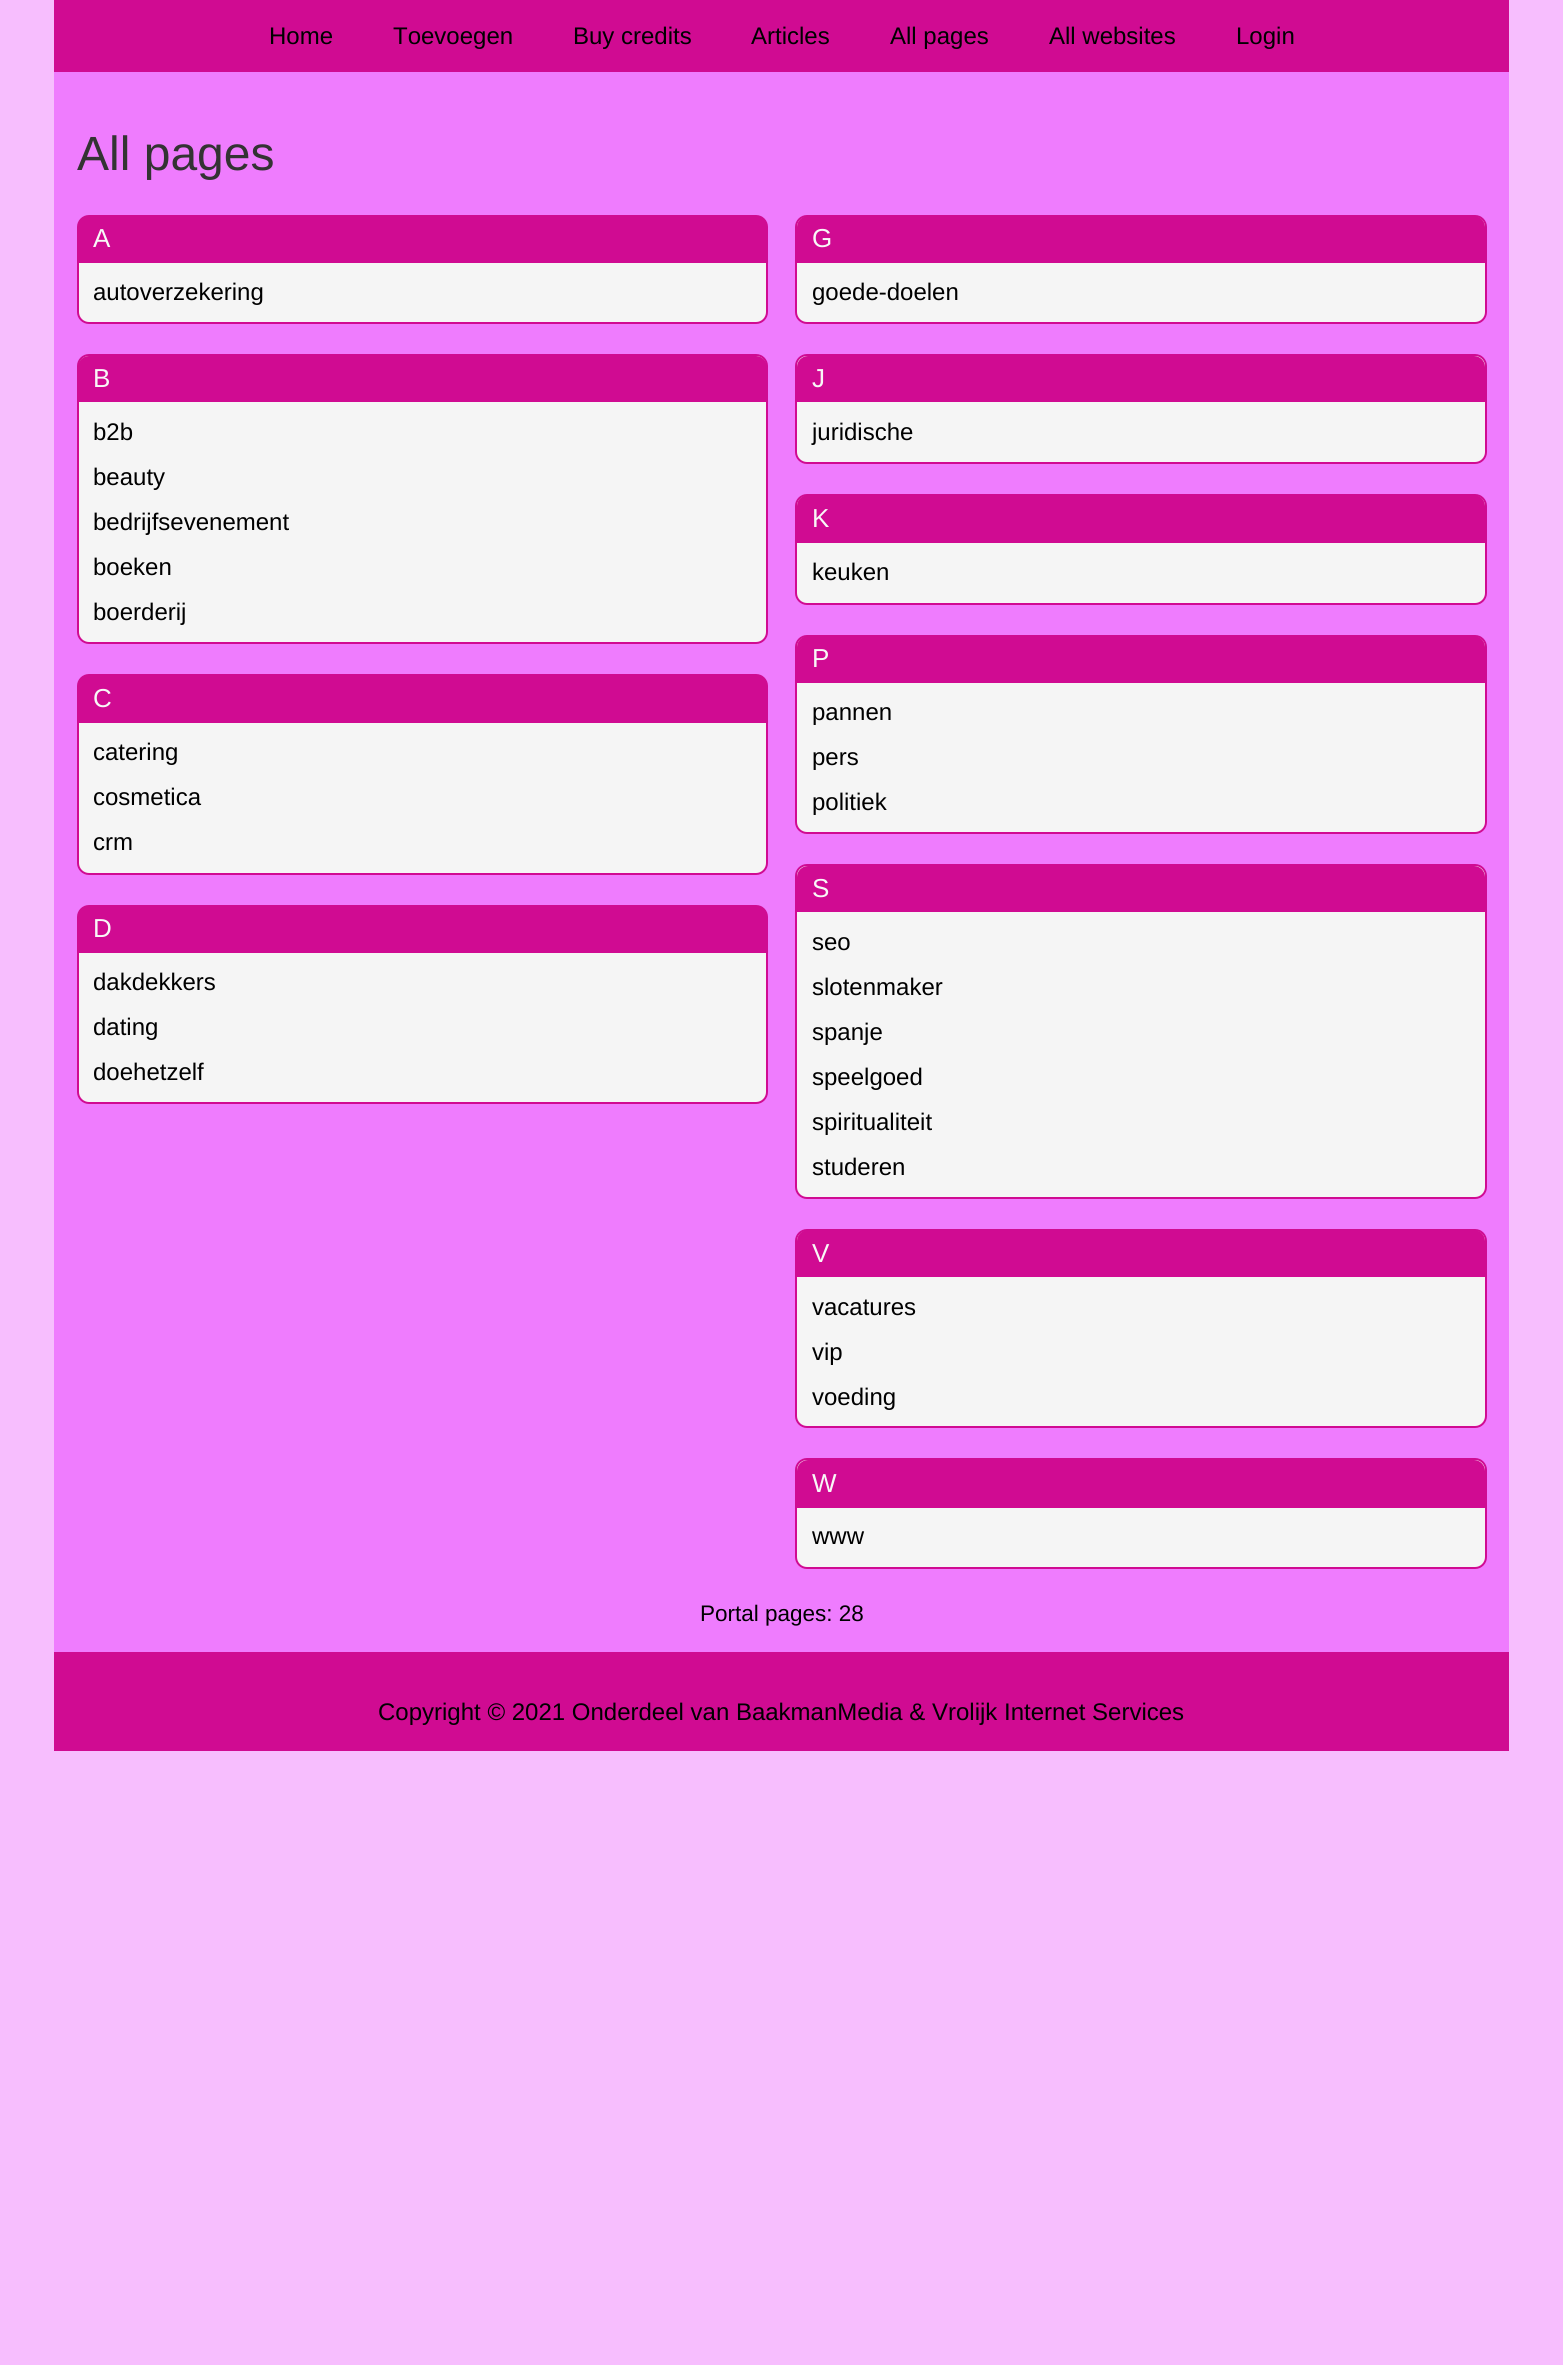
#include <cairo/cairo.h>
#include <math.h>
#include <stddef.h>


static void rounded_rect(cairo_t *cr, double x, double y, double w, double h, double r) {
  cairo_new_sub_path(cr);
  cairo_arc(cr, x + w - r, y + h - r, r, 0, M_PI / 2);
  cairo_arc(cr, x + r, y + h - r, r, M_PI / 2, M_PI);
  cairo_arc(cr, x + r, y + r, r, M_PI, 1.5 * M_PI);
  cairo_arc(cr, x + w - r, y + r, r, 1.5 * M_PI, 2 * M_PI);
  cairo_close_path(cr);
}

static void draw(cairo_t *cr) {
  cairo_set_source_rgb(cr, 247 / 255.0, 190 / 255.0, 254 / 255.0);
  cairo_paint(cr);
  cairo_set_source_rgb(cr, 208 / 255.0, 11 / 255.0, 146 / 255.0);
  cairo_rectangle(cr, 54, 0, 1455, 72);
  cairo_fill(cr);
  cairo_set_source_rgb(cr, 239 / 255.0, 124 / 255.0, 254 / 255.0);
  cairo_rectangle(cr, 54, 72, 1455, 1580);
  cairo_fill(cr);
  cairo_set_source_rgb(cr, 245 / 255.0, 245 / 255.0, 245 / 255.0);
  rounded_rect(cr, 78, 216, 689, 107, 11);
  cairo_fill_preserve(cr);
  cairo_set_source_rgb(cr, 208 / 255.0, 11 / 255.0, 146 / 255.0);
  cairo_stroke(cr);
  cairo_new_path(cr);
  cairo_move_to(cr, 89, 216);
  cairo_line_to(cr, 756, 216);
  cairo_curve_to(cr, 762, 216, 767, 221, 767, 227);
  cairo_line_to(cr, 767, 263);
  cairo_line_to(cr, 78, 263);
  cairo_line_to(cr, 78, 227);
  cairo_curve_to(cr, 78, 221, 83, 216, 89, 216);
  cairo_close_path(cr);
  cairo_fill(cr);
  cairo_set_source_rgb(cr, 245 / 255.0, 245 / 255.0, 245 / 255.0);
  rounded_rect(cr, 78, 355, 689, 288, 11);
  cairo_fill_preserve(cr);
  cairo_set_source_rgb(cr, 208 / 255.0, 11 / 255.0, 146 / 255.0);
  cairo_stroke(cr);
  cairo_new_path(cr);
  cairo_move_to(cr, 89, 356);
  cairo_line_to(cr, 756, 356);
  cairo_curve_to(cr, 762, 356, 767, 361, 767, 367);
  cairo_line_to(cr, 767, 402);
  cairo_line_to(cr, 78, 402);
  cairo_line_to(cr, 78, 367);
  cairo_curve_to(cr, 78, 361, 83, 356, 89, 356);
  cairo_close_path(cr);
  cairo_fill(cr);
  cairo_set_source_rgb(cr, 245 / 255.0, 245 / 255.0, 245 / 255.0);
  rounded_rect(cr, 78, 675, 689, 199, 11);
  cairo_fill_preserve(cr);
  cairo_set_source_rgb(cr, 208 / 255.0, 11 / 255.0, 146 / 255.0);
  cairo_stroke(cr);
  cairo_new_path(cr);
  cairo_move_to(cr, 89, 675);
  cairo_line_to(cr, 756, 675);
  cairo_curve_to(cr, 762, 675, 767, 680, 767, 686);
  cairo_line_to(cr, 767, 723);
  cairo_line_to(cr, 78, 723);
  cairo_line_to(cr, 78, 686);
  cairo_curve_to(cr, 78, 680, 83, 675, 89, 675);
  cairo_close_path(cr);
  cairo_fill(cr);
  cairo_set_source_rgb(cr, 245 / 255.0, 245 / 255.0, 245 / 255.0);
  rounded_rect(cr, 78, 906, 689, 197, 11);
  cairo_fill_preserve(cr);
  cairo_set_source_rgb(cr, 208 / 255.0, 11 / 255.0, 146 / 255.0);
  cairo_stroke(cr);
  cairo_new_path(cr);
  cairo_move_to(cr, 89, 906);
  cairo_line_to(cr, 756, 906);
  cairo_curve_to(cr, 762, 906, 767, 911, 767, 917);
  cairo_line_to(cr, 767, 953);
  cairo_line_to(cr, 78, 953);
  cairo_line_to(cr, 78, 917);
  cairo_curve_to(cr, 78, 911, 83, 906, 89, 906);
  cairo_close_path(cr);
  cairo_fill(cr);
  cairo_set_source_rgb(cr, 245 / 255.0, 245 / 255.0, 245 / 255.0);
  rounded_rect(cr, 796, 216, 690, 107, 11);
  cairo_fill_preserve(cr);
  cairo_set_source_rgb(cr, 208 / 255.0, 11 / 255.0, 146 / 255.0);
  cairo_stroke(cr);
  cairo_new_path(cr);
  cairo_move_to(cr, 808, 216);
  cairo_line_to(cr, 1474, 216);
  cairo_curve_to(cr, 1480, 216, 1485, 221, 1485, 227);
  cairo_line_to(cr, 1485, 263);
  cairo_line_to(cr, 797, 263);
  cairo_line_to(cr, 797, 227);
  cairo_curve_to(cr, 797, 221, 802, 216, 808, 216);
  cairo_close_path(cr);
  cairo_fill(cr);
  cairo_set_source_rgb(cr, 245 / 255.0, 245 / 255.0, 245 / 255.0);
  rounded_rect(cr, 796, 355, 690, 108, 11);
  cairo_fill_preserve(cr);
  cairo_set_source_rgb(cr, 208 / 255.0, 11 / 255.0, 146 / 255.0);
  cairo_stroke(cr);
  cairo_new_path(cr);
  cairo_move_to(cr, 808, 356);
  cairo_line_to(cr, 1474, 356);
  cairo_curve_to(cr, 1480, 356, 1485, 361, 1485, 367);
  cairo_line_to(cr, 1485, 402);
  cairo_line_to(cr, 797, 402);
  cairo_line_to(cr, 797, 367);
  cairo_curve_to(cr, 797, 361, 802, 356, 808, 356);
  cairo_close_path(cr);
  cairo_fill(cr);
  cairo_set_source_rgb(cr, 245 / 255.0, 245 / 255.0, 245 / 255.0);
  rounded_rect(cr, 796, 495, 690, 109, 11);
  cairo_fill_preserve(cr);
  cairo_set_source_rgb(cr, 208 / 255.0, 11 / 255.0, 146 / 255.0);
  cairo_stroke(cr);
  cairo_new_path(cr);
  cairo_move_to(cr, 808, 495);
  cairo_line_to(cr, 1474, 495);
  cairo_curve_to(cr, 1480, 495, 1485, 500, 1485, 506);
  cairo_line_to(cr, 1485, 543);
  cairo_line_to(cr, 797, 543);
  cairo_line_to(cr, 797, 506);
  cairo_curve_to(cr, 797, 500, 802, 495, 808, 495);
  cairo_close_path(cr);
  cairo_fill(cr);
  cairo_set_source_rgb(cr, 245 / 255.0, 245 / 255.0, 245 / 255.0);
  rounded_rect(cr, 796, 636, 690, 197, 11);
  cairo_fill_preserve(cr);
  cairo_set_source_rgb(cr, 208 / 255.0, 11 / 255.0, 146 / 255.0);
  cairo_stroke(cr);
  cairo_new_path(cr);
  cairo_move_to(cr, 808, 636);
  cairo_line_to(cr, 1474, 636);
  cairo_curve_to(cr, 1480, 636, 1485, 641, 1485, 647);
  cairo_line_to(cr, 1485, 683);
  cairo_line_to(cr, 797, 683);
  cairo_line_to(cr, 797, 647);
  cairo_curve_to(cr, 797, 641, 802, 636, 808, 636);
  cairo_close_path(cr);
  cairo_fill(cr);
  cairo_set_source_rgb(cr, 245 / 255.0, 245 / 255.0, 245 / 255.0);
  rounded_rect(cr, 796, 865, 690, 333, 11);
  cairo_fill_preserve(cr);
  cairo_set_source_rgb(cr, 208 / 255.0, 11 / 255.0, 146 / 255.0);
  cairo_stroke(cr);
  cairo_new_path(cr);
  cairo_move_to(cr, 808, 866);
  cairo_line_to(cr, 1474, 866);
  cairo_curve_to(cr, 1480, 866, 1485, 871, 1485, 877);
  cairo_line_to(cr, 1485, 912);
  cairo_line_to(cr, 797, 912);
  cairo_line_to(cr, 797, 877);
  cairo_curve_to(cr, 797, 871, 802, 866, 808, 866);
  cairo_close_path(cr);
  cairo_fill(cr);
  cairo_set_source_rgb(cr, 245 / 255.0, 245 / 255.0, 245 / 255.0);
  rounded_rect(cr, 796, 1230, 690, 197, 11);
  cairo_fill_preserve(cr);
  cairo_set_source_rgb(cr, 208 / 255.0, 11 / 255.0, 146 / 255.0);
  cairo_stroke(cr);
  cairo_new_path(cr);
  cairo_move_to(cr, 808, 1230);
  cairo_line_to(cr, 1474, 1230);
  cairo_curve_to(cr, 1480, 1230, 1485, 1235, 1485, 1241);
  cairo_line_to(cr, 1485, 1277);
  cairo_line_to(cr, 797, 1277);
  cairo_line_to(cr, 797, 1241);
  cairo_curve_to(cr, 797, 1235, 802, 1230, 808, 1230);
  cairo_close_path(cr);
  cairo_fill(cr);
  cairo_set_source_rgb(cr, 245 / 255.0, 245 / 255.0, 245 / 255.0);
  rounded_rect(cr, 796, 1459, 690, 109, 11);
  cairo_fill_preserve(cr);
  cairo_set_source_rgb(cr, 208 / 255.0, 11 / 255.0, 146 / 255.0);
  cairo_stroke(cr);
  cairo_new_path(cr);
  cairo_move_to(cr, 808, 1460);
  cairo_line_to(cr, 1474, 1460);
  cairo_curve_to(cr, 1480, 1460, 1485, 1465, 1485, 1471);
  cairo_line_to(cr, 1485, 1508);
  cairo_line_to(cr, 797, 1508);
  cairo_line_to(cr, 797, 1471);
  cairo_curve_to(cr, 797, 1465, 802, 1460, 808, 1460);
  cairo_close_path(cr);
  cairo_fill(cr);
  cairo_rectangle(cr, 54, 1652, 1455, 99);
  cairo_fill(cr);
  cairo_select_font_face(cr, "Liberation Sans", CAIRO_FONT_SLANT_NORMAL, CAIRO_FONT_WEIGHT_NORMAL);
  cairo_set_font_size(cr, 24);
  cairo_set_source_rgb(cr, 0, 0, 0);
  cairo_move_to(cr, 269, 44);
  cairo_show_text(cr, "Home");
  cairo_move_to(cr, 393, 44);
  cairo_show_text(cr, "Toevoegen");
  cairo_move_to(cr, 573, 44);
  cairo_show_text(cr, "Buy credits");
  cairo_move_to(cr, 751, 44);
  cairo_show_text(cr, "Articles");
  cairo_move_to(cr, 890, 44);
  cairo_show_text(cr, "All pages");
  cairo_move_to(cr, 1049, 44);
  cairo_show_text(cr, "All websites");
  cairo_move_to(cr, 1236, 44);
  cairo_show_text(cr, "Login");
  cairo_set_font_size(cr, 48);
  cairo_set_source_rgb(cr, 51 / 255.0, 51 / 255.0, 51 / 255.0);
  cairo_move_to(cr, 77, 170);
  cairo_show_text(cr, "All pages");
  cairo_set_font_size(cr, 26);
  cairo_set_source_rgb(cr, 248 / 255.0, 248 / 255.0, 247 / 255.0);
  cairo_move_to(cr, 93, 247);
  cairo_show_text(cr, "A");
  cairo_set_font_size(cr, 24);
  cairo_set_source_rgb(cr, 0, 0, 0);
  cairo_move_to(cr, 93, 300);
  cairo_show_text(cr, "autoverzekering");
  cairo_set_font_size(cr, 26);
  cairo_set_source_rgb(cr, 248 / 255.0, 248 / 255.0, 247 / 255.0);
  cairo_move_to(cr, 93, 387);
  cairo_show_text(cr, "B");
  cairo_set_font_size(cr, 24);
  cairo_set_source_rgb(cr, 0, 0, 0);
  cairo_move_to(cr, 93, 440);
  cairo_show_text(cr, "b2b");
  cairo_move_to(cr, 93, 485);
  cairo_show_text(cr, "beauty");
  cairo_move_to(cr, 93, 530);
  cairo_show_text(cr, "bedrijfsevenement");
  cairo_move_to(cr, 93, 575);
  cairo_show_text(cr, "boeken");
  cairo_move_to(cr, 93, 620);
  cairo_show_text(cr, "boerderij");
  cairo_set_font_size(cr, 26);
  cairo_set_source_rgb(cr, 248 / 255.0, 248 / 255.0, 247 / 255.0);
  cairo_move_to(cr, 93, 707);
  cairo_show_text(cr, "C");
  cairo_set_font_size(cr, 24);
  cairo_set_source_rgb(cr, 0, 0, 0);
  cairo_move_to(cr, 93, 760);
  cairo_show_text(cr, "catering");
  cairo_move_to(cr, 93, 805);
  cairo_show_text(cr, "cosmetica");
  cairo_move_to(cr, 93, 850);
  cairo_show_text(cr, "crm");
  cairo_set_font_size(cr, 26);
  cairo_set_source_rgb(cr, 248 / 255.0, 248 / 255.0, 247 / 255.0);
  cairo_move_to(cr, 93, 937);
  cairo_show_text(cr, "D");
  cairo_set_font_size(cr, 24);
  cairo_set_source_rgb(cr, 0, 0, 0);
  cairo_move_to(cr, 93, 990);
  cairo_show_text(cr, "dakdekkers");
  cairo_move_to(cr, 93, 1035);
  cairo_show_text(cr, "dating");
  cairo_move_to(cr, 93, 1080);
  cairo_show_text(cr, "doehetzelf");
  cairo_set_font_size(cr, 26);
  cairo_set_source_rgb(cr, 248 / 255.0, 248 / 255.0, 247 / 255.0);
  cairo_move_to(cr, 812, 247);
  cairo_show_text(cr, "G");
  cairo_set_font_size(cr, 24);
  cairo_set_source_rgb(cr, 0, 0, 0);
  cairo_move_to(cr, 812, 300);
  cairo_show_text(cr, "goede-doelen");
  cairo_set_font_size(cr, 26);
  cairo_set_source_rgb(cr, 248 / 255.0, 248 / 255.0, 247 / 255.0);
  cairo_move_to(cr, 812, 387);
  cairo_show_text(cr, "J");
  cairo_set_font_size(cr, 24);
  cairo_set_source_rgb(cr, 0, 0, 0);
  cairo_move_to(cr, 812, 440);
  cairo_show_text(cr, "juridische");
  cairo_set_font_size(cr, 26);
  cairo_set_source_rgb(cr, 248 / 255.0, 248 / 255.0, 247 / 255.0);
  cairo_move_to(cr, 812, 527);
  cairo_show_text(cr, "K");
  cairo_set_font_size(cr, 24);
  cairo_set_source_rgb(cr, 0, 0, 0);
  cairo_move_to(cr, 812, 580);
  cairo_show_text(cr, "keuken");
  cairo_set_font_size(cr, 26);
  cairo_set_source_rgb(cr, 248 / 255.0, 248 / 255.0, 247 / 255.0);
  cairo_move_to(cr, 812, 667);
  cairo_show_text(cr, "P");
  cairo_set_font_size(cr, 24);
  cairo_set_source_rgb(cr, 0, 0, 0);
  cairo_move_to(cr, 812, 720);
  cairo_show_text(cr, "pannen");
  cairo_move_to(cr, 812, 765);
  cairo_show_text(cr, "pers");
  cairo_move_to(cr, 812, 810);
  cairo_show_text(cr, "politiek");
  cairo_set_font_size(cr, 26);
  cairo_set_source_rgb(cr, 248 / 255.0, 248 / 255.0, 247 / 255.0);
  cairo_move_to(cr, 812, 897);
  cairo_show_text(cr, "S");
  cairo_set_font_size(cr, 24);
  cairo_set_source_rgb(cr, 0, 0, 0);
  cairo_move_to(cr, 812, 950);
  cairo_show_text(cr, "seo");
  cairo_move_to(cr, 812, 995);
  cairo_show_text(cr, "slotenmaker");
  cairo_move_to(cr, 812, 1040);
  cairo_show_text(cr, "spanje");
  cairo_move_to(cr, 812, 1085);
  cairo_show_text(cr, "speelgoed");
  cairo_move_to(cr, 812, 1130);
  cairo_show_text(cr, "spiritualiteit");
  cairo_move_to(cr, 812, 1175);
  cairo_show_text(cr, "studeren");
  cairo_set_font_size(cr, 26);
  cairo_set_source_rgb(cr, 248 / 255.0, 248 / 255.0, 247 / 255.0);
  cairo_move_to(cr, 812, 1262);
  cairo_show_text(cr, "V");
  cairo_set_font_size(cr, 24);
  cairo_set_source_rgb(cr, 0, 0, 0);
  cairo_move_to(cr, 812, 1315);
  cairo_show_text(cr, "vacatures");
  cairo_move_to(cr, 812, 1360);
  cairo_show_text(cr, "vip");
  cairo_move_to(cr, 812, 1405);
  cairo_show_text(cr, "voeding");
  cairo_set_font_size(cr, 26);
  cairo_set_source_rgb(cr, 248 / 255.0, 248 / 255.0, 247 / 255.0);
  cairo_move_to(cr, 812, 1492);
  cairo_show_text(cr, "W");
  cairo_set_font_size(cr, 24);
  cairo_set_source_rgb(cr, 0, 0, 0);
  cairo_move_to(cr, 812, 1544);
  cairo_show_text(cr, "www");
  cairo_set_font_size(cr, 22.5);
  cairo_move_to(cr, 700, 1621);
  cairo_show_text(cr, "Portal pages: 28");
  cairo_set_font_size(cr, 24);
  cairo_move_to(cr, 378, 1720);
  cairo_show_text(cr, "Copyright © 2021 Onderdeel van BaakmanMedia & Vrolijk Internet Services");
}

int main(void) {
  cairo_surface_t *surface = cairo_image_surface_create(CAIRO_FORMAT_RGB24, 1563, 2365);
  cairo_t *cr = cairo_create(surface);
  cairo_font_options_t *options = cairo_font_options_create();
  cairo_font_options_set_hint_metrics(options, CAIRO_HINT_METRICS_OFF);
  cairo_font_options_set_hint_style(options, CAIRO_HINT_STYLE_NONE);
  cairo_set_font_options(cr, options);
  cairo_set_miter_limit(cr, 4);
  draw(cr);
  cairo_surface_write_to_png(surface, "out.png");
  cairo_font_options_destroy(options);
  cairo_destroy(cr);
  cairo_surface_destroy(surface);
  return 0;
}
